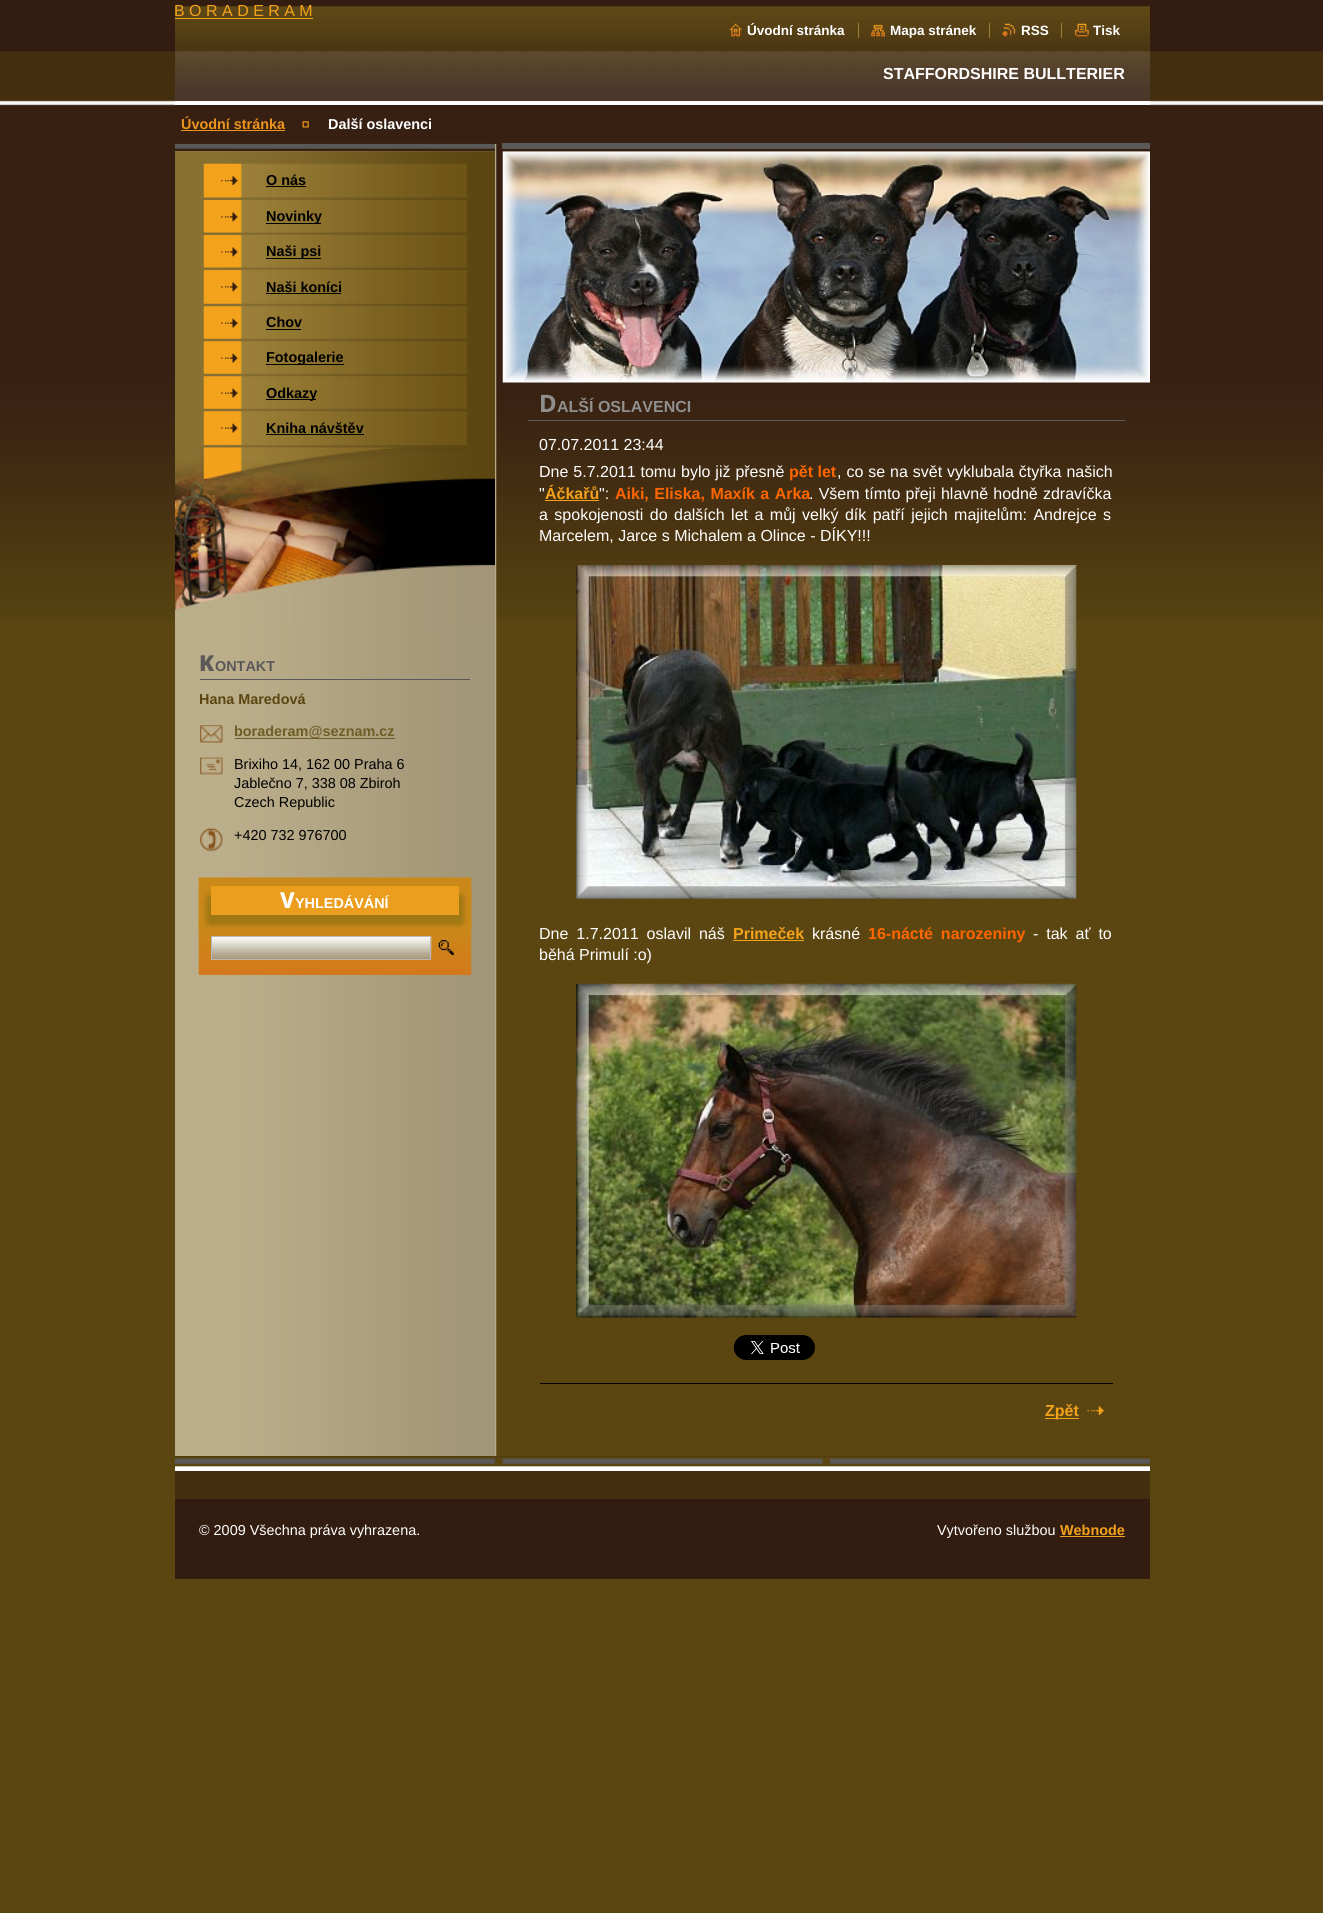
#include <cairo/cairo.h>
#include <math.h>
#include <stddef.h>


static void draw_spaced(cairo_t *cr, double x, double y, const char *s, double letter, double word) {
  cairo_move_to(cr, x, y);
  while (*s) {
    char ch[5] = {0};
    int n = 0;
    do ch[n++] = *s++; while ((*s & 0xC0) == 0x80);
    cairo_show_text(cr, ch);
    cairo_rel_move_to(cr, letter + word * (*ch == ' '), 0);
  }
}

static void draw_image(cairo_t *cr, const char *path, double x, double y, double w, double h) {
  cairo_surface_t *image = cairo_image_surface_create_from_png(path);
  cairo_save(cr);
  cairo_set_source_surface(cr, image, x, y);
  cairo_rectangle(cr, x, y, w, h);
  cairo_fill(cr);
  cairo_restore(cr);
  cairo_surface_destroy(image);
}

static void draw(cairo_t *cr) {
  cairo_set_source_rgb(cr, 91 / 255.0, 70 / 255.0, 17 / 255.0);
  cairo_paint(cr);
  draw_image(cr, "images/1.png", 0, 0, 1323, 620);
  draw_image(cr, "images/2.png", 175, 144, 322, 1312);
  draw_image(cr, "images/3.png", 175, 0, 975, 101);
  cairo_set_source_rgb(cr, 1, 1, 1);
  cairo_rectangle(cr, 175, 101, 975, 4);
  cairo_fill(cr);
  cairo_set_source_rgb(cr, 243 / 255.0, 162 / 255.0, 28 / 255.0);
  cairo_rectangle(cr, 175, 18, 138, 1);
  cairo_fill(cr);
  draw_image(cr, "images/4.png", 729, 23, 13, 14);
  draw_image(cr, "images/5.png", 871, 24, 14, 13);
  cairo_set_source_rgb(cr, 154 / 255.0, 126 / 255.0, 55 / 255.0);
  cairo_rectangle(cr, 858, 23, 1, 15);
  cairo_fill(cr);
  draw_image(cr, "images/6.png", 1002, 23, 14, 14);
  cairo_rectangle(cr, 989, 23, 1, 15);
  cairo_fill(cr);
  draw_image(cr, "images/7.png", 1075, 23, 14, 14);
  cairo_rectangle(cr, 1061, 23, 1, 15);
  cairo_fill(cr);
  cairo_set_source_rgb(cr, 55 / 255.0, 32 / 255.0, 18 / 255.0);
  cairo_rectangle(cr, 175, 105, 975, 1);
  cairo_fill(cr);
  cairo_set_source_rgb(cr, 237 / 255.0, 149 / 255.0, 28 / 255.0);
  cairo_rectangle(cr, 181, 130, 104, 1);
  cairo_fill(cr);
  draw_image(cr, "images/8.png", 302, 121, 7, 7);
  draw_image(cr, "images/9.png", 175, 143, 320, 9);
  draw_image(cr, "images/10.png", 175, 151, 320, 297);
  draw_image(cr, "images/11.png", 203, 163, 264, 35);
  draw_image(cr, "images/12.png", 221, 176, 17, 9);
  cairo_set_source_rgb(cr, 0, 0, 0);
  cairo_rectangle(cr, 266, 186, 40, 1);
  cairo_fill(cr);
  draw_image(cr, "images/13.png", 203, 200, 264, 33);
  draw_image(cr, "images/14.png", 221, 212, 17, 10);
  cairo_rectangle(cr, 266, 223, 55, 1);
  cairo_fill(cr);
  draw_image(cr, "images/15.png", 203, 235, 264, 33);
  draw_image(cr, "images/14.png", 221, 247, 17, 10);
  cairo_rectangle(cr, 266, 258, 55, 1);
  cairo_fill(cr);
  draw_image(cr, "images/16.png", 203, 270, 264, 34);
  draw_image(cr, "images/14.png", 221, 282, 17, 10);
  cairo_rectangle(cr, 266, 293, 75, 1);
  cairo_fill(cr);
  draw_image(cr, "images/17.png", 203, 306, 264, 33);
  draw_image(cr, "images/18.png", 221, 318, 17, 10);
  cairo_rectangle(cr, 266, 329, 35, 1);
  cairo_fill(cr);
  draw_image(cr, "images/19.png", 203, 341, 264, 33);
  draw_image(cr, "images/18.png", 221, 353, 17, 10);
  cairo_rectangle(cr, 266, 364, 78, 1);
  cairo_fill(cr);
  draw_image(cr, "images/20.png", 203, 376, 264, 33);
  draw_image(cr, "images/18.png", 221, 388, 17, 10);
  cairo_rectangle(cr, 266, 399, 50, 1);
  cairo_fill(cr);
  draw_image(cr, "images/21.png", 203, 411, 264, 34);
  draw_image(cr, "images/18.png", 221, 423, 17, 10);
  cairo_rectangle(cr, 266, 434, 98, 1);
  cairo_fill(cr);
  draw_image(cr, "images/22.png", 175, 447, 320, 178);
  cairo_set_source_rgb(cr, 92 / 255.0, 88 / 255.0, 89 / 255.0);
  cairo_rectangle(cr, 200, 679, 270, 1);
  cairo_fill(cr);
  draw_image(cr, "images/23.png", 200, 725, 23, 18);
  cairo_set_source_rgb(cr, 112 / 255.0, 93 / 255.0, 38 / 255.0);
  cairo_rectangle(cr, 235, 738, 160, 1);
  cairo_fill(cr);
  draw_image(cr, "images/24.png", 200, 757, 23, 18);
  draw_image(cr, "images/25.png", 200, 828, 23, 24);
  draw_image(cr, "images/26.png", 198, 877, 274, 98);
  cairo_set_source_rgb(cr, 160 / 255.0, 120 / 255.0, 20 / 255.0);
  cairo_rectangle(cr, 211, 915, 248, 5);
  cairo_fill(cr);
  draw_image(cr, "images/27.png", 198, 890, 274, 40);
  draw_image(cr, "images/28.png", 198, 890, 274, 10);
  cairo_set_source_rgb(cr, 235 / 255.0, 158 / 255.0, 29 / 255.0);
  cairo_rectangle(cr, 211, 886, 248, 29);
  cairo_fill(cr);
  draw_image(cr, "images/29.png", 198, 920, 274, 10);
  draw_image(cr, "images/30.png", 212, 936, 220, 23);
  cairo_rectangle(cr, 211.5, 936.5, 219, 23);
  cairo_set_source_rgb(cr, 184 / 255.0, 184 / 255.0, 184 / 255.0);
  cairo_set_line_width(cr, 1);
  cairo_stroke(cr);
  draw_image(cr, "images/31.png", 438, 940, 16, 15);
  cairo_set_source_rgb(cr, 91 / 255.0, 88 / 255.0, 88 / 255.0);
  cairo_rectangle(cr, 502, 143, 648, 6);
  cairo_fill(cr);
  draw_image(cr, "images/32.png", 502, 151, 648, 232);
  cairo_set_source_rgb(cr, 90 / 255.0, 88 / 255.0, 89 / 255.0);
  cairo_rectangle(cr, 528, 420, 597, 1);
  cairo_fill(cr);
  cairo_set_source_rgb(cr, 243 / 255.0, 162 / 255.0, 28 / 255.0);
  cairo_rectangle(cr, 545, 500, 54, 1);
  cairo_fill(cr);
  draw_image(cr, "images/33.png", 576, 565, 501, 334);
  cairo_rectangle(cr, 733, 940, 71, 1);
  cairo_fill(cr);
  draw_image(cr, "images/34.png", 576, 983, 501, 335);
  draw_image(cr, "images/35.png", 733, 1335, 82, 25);
  cairo_set_source_rgb(cr, 0, 0, 0);
  cairo_rectangle(cr, 540, 1383, 573, 1);
  cairo_fill(cr);
  cairo_set_source_rgb(cr, 243 / 255.0, 162 / 255.0, 28 / 255.0);
  cairo_rectangle(cr, 1045, 1418, 34, 1);
  cairo_fill(cr);
  draw_image(cr, "images/36.png", 1087, 1406, 17, 9);
  cairo_set_source_rgb(cr, 51 / 255.0, 29 / 255.0, 16 / 255.0);
  cairo_rectangle(cr, 175, 1456, 975, 123);
  cairo_fill(cr);
  draw_image(cr, "images/37.png", 175, 1456, 975, 15);
  cairo_set_source_rgb(cr, 68 / 255.0, 46 / 255.0, 16 / 255.0);
  cairo_rectangle(cr, 175, 1471, 975, 28);
  cairo_fill(cr);
  cairo_set_source_rgb(cr, 243 / 255.0, 162 / 255.0, 28 / 255.0);
  cairo_rectangle(cr, 1060, 1536, 65, 1);
  cairo_fill(cr);
  cairo_select_font_face(cr, "Liberation Sans", CAIRO_FONT_SLANT_NORMAL, CAIRO_FONT_WEIGHT_NORMAL);
  cairo_set_font_size(cr, 16);
  cairo_move_to(cr, 174, 16);
  cairo_show_text(cr, "B O R A D E R A M");
  cairo_select_font_face(cr, "Liberation Sans", CAIRO_FONT_SLANT_NORMAL, CAIRO_FONT_WEIGHT_BOLD);
  cairo_set_font_size(cr, 13.5);
  cairo_set_source_rgb(cr, 1, 1, 1);
  cairo_move_to(cr, 747, 35);
  cairo_show_text(cr, "Úvodní stránka");
  cairo_move_to(cr, 890, 35);
  cairo_show_text(cr, "Mapa stránek");
  cairo_move_to(cr, 1021, 35);
  cairo_show_text(cr, "RSS");
  cairo_move_to(cr, 1093, 35);
  cairo_show_text(cr, "Tisk");
  cairo_set_font_size(cr, 16);
  cairo_move_to(cr, 883, 79);
  cairo_show_text(cr, "STAFFORDSHIRE BULLTERIER");
  cairo_set_font_size(cr, 14.4);
  cairo_set_source_rgb(cr, 237 / 255.0, 149 / 255.0, 28 / 255.0);
  cairo_move_to(cr, 181, 129);
  cairo_show_text(cr, "Úvodní stránka");
  cairo_set_source_rgb(cr, 1, 1, 1);
  cairo_move_to(cr, 328, 129);
  cairo_show_text(cr, "Další oslavenci");
  cairo_set_source_rgb(cr, 0, 0, 0);
  cairo_move_to(cr, 266, 185);
  cairo_show_text(cr, "O nás");
  cairo_move_to(cr, 266, 221);
  cairo_show_text(cr, "Novinky");
  cairo_move_to(cr, 266, 256);
  cairo_show_text(cr, "Naši psi");
  cairo_move_to(cr, 266, 292);
  cairo_show_text(cr, "Naši koníci");
  cairo_move_to(cr, 266, 327);
  cairo_show_text(cr, "Chov");
  cairo_move_to(cr, 266, 362);
  cairo_show_text(cr, "Fotogalerie");
  cairo_move_to(cr, 266, 398);
  cairo_show_text(cr, "Odkazy");
  cairo_move_to(cr, 266, 433);
  cairo_show_text(cr, "Kniha návštěv");
  cairo_select_font_face(cr, "Noto Sans Black", CAIRO_FONT_SLANT_NORMAL, CAIRO_FONT_WEIGHT_NORMAL);
  cairo_set_font_size(cr, 22);
  cairo_set_source_rgb(cr, 92 / 255.0, 88 / 255.0, 89 / 255.0);
  cairo_move_to(cr, 199, 671);
  cairo_show_text(cr, "K");
  cairo_select_font_face(cr, "Liberation Sans", CAIRO_FONT_SLANT_NORMAL, CAIRO_FONT_WEIGHT_BOLD);
  cairo_set_font_size(cr, 14.4);
  cairo_move_to(cr, 215, 671);
  cairo_show_text(cr, "ONTAKT");
  cairo_set_source_rgb(cr, 91 / 255.0, 70 / 255.0, 17 / 255.0);
  cairo_move_to(cr, 199, 704);
  cairo_show_text(cr, "Hana Maredová");
  cairo_set_source_rgb(cr, 112 / 255.0, 93 / 255.0, 38 / 255.0);
  cairo_move_to(cr, 234, 736);
  cairo_show_text(cr, "boraderam@seznam.cz");
  cairo_select_font_face(cr, "Liberation Sans", CAIRO_FONT_SLANT_NORMAL, CAIRO_FONT_WEIGHT_NORMAL);
  cairo_set_source_rgb(cr, 0, 0, 0);
  cairo_move_to(cr, 234, 769);
  cairo_show_text(cr, "Brixiho 14, 162 00 Praha 6");
  cairo_move_to(cr, 234, 788);
  cairo_show_text(cr, "Jablečno 7, 338 08 Zbiroh");
  cairo_move_to(cr, 234, 807);
  cairo_show_text(cr, "Czech Republic");
  cairo_move_to(cr, 234, 840);
  cairo_show_text(cr, "+420 732 976700");
  cairo_select_font_face(cr, "Noto Sans ExtraBold", CAIRO_FONT_SLANT_NORMAL, CAIRO_FONT_WEIGHT_NORMAL);
  cairo_set_font_size(cr, 22);
  cairo_set_source_rgb(cr, 1, 1, 1);
  cairo_move_to(cr, 280, 908);
  cairo_show_text(cr, "V");
  cairo_select_font_face(cr, "Liberation Sans", CAIRO_FONT_SLANT_NORMAL, CAIRO_FONT_WEIGHT_BOLD);
  cairo_set_font_size(cr, 14.4);
  cairo_move_to(cr, 295, 908);
  cairo_show_text(cr, "YHLEDÁVÁNÍ");
  cairo_select_font_face(cr, "Noto Sans", CAIRO_FONT_SLANT_NORMAL, CAIRO_FONT_WEIGHT_BOLD);
  cairo_set_font_size(cr, 24);
  cairo_set_source_rgb(cr, 143 / 255.0, 143 / 255.0, 143 / 255.0);
  cairo_move_to(cr, 539, 412);
  cairo_show_text(cr, "D");
  cairo_select_font_face(cr, "Liberation Sans", CAIRO_FONT_SLANT_NORMAL, CAIRO_FONT_WEIGHT_BOLD);
  cairo_set_font_size(cr, 16);
  cairo_move_to(cr, 557, 412);
  cairo_show_text(cr, "ALŠÍ OSLAVENCI");
  cairo_select_font_face(cr, "Liberation Sans", CAIRO_FONT_SLANT_NORMAL, CAIRO_FONT_WEIGHT_NORMAL);
  cairo_set_source_rgb(cr, 1, 1, 1);
  cairo_move_to(cr, 539, 450);
  cairo_show_text(cr, "07.07.2011 23:44");
  draw_spaced(cr, 539, 477, "Dne 5.7.2011 tomu bylo již přesně", 0, 0.5);
  cairo_select_font_face(cr, "Liberation Sans", CAIRO_FONT_SLANT_NORMAL, CAIRO_FONT_WEIGHT_BOLD);
  cairo_set_source_rgb(cr, 1, 102 / 255.0, 0);
  cairo_move_to(cr, 789, 477);
  cairo_show_text(cr, "pět let");
  cairo_select_font_face(cr, "Liberation Sans", CAIRO_FONT_SLANT_NORMAL, CAIRO_FONT_WEIGHT_NORMAL);
  cairo_set_source_rgb(cr, 1, 1, 1);
  draw_spaced(cr, 837, 477, ", co se na svět vyklubala čtyřka našich", 0, 0.5);
  cairo_move_to(cr, 539, 499);
  cairo_show_text(cr, "\"");
  cairo_select_font_face(cr, "Liberation Sans", CAIRO_FONT_SLANT_NORMAL, CAIRO_FONT_WEIGHT_BOLD);
  cairo_set_source_rgb(cr, 243 / 255.0, 162 / 255.0, 28 / 255.0);
  cairo_move_to(cr, 545, 499);
  cairo_show_text(cr, "Áčkařů");
  cairo_select_font_face(cr, "Liberation Sans", CAIRO_FONT_SLANT_NORMAL, CAIRO_FONT_WEIGHT_NORMAL);
  cairo_set_source_rgb(cr, 1, 1, 1);
  cairo_move_to(cr, 599, 499);
  cairo_show_text(cr, "\":");
  cairo_select_font_face(cr, "Liberation Sans", CAIRO_FONT_SLANT_NORMAL, CAIRO_FONT_WEIGHT_BOLD);
  cairo_set_source_rgb(cr, 1, 102 / 255.0, 0);
  draw_spaced(cr, 615, 499, "Aiki, Eliska, Maxík a Arka", 0, 1);
  cairo_select_font_face(cr, "Liberation Sans", CAIRO_FONT_SLANT_NORMAL, CAIRO_FONT_WEIGHT_NORMAL);
  cairo_set_source_rgb(cr, 1, 1, 1);
  draw_spaced(cr, 809, 499, ". Všem tímto přeji hlavně hodně zdravíčka", 0, 0.75);
  draw_spaced(cr, 539, 520, "a spokojenosti do dalších let a můj velký dík patří jejich majitelům: Andrejce s", 0, 2);
  cairo_move_to(cr, 539, 541);
  cairo_show_text(cr, "Marcelem, Jarce s Michalem a Olince - DÍKY!!!");
  draw_spaced(cr, 539, 939, "Dne 1.7.2011 oslavil náš", 0, 3.5);
  cairo_select_font_face(cr, "Liberation Sans", CAIRO_FONT_SLANT_NORMAL, CAIRO_FONT_WEIGHT_BOLD);
  cairo_set_source_rgb(cr, 243 / 255.0, 162 / 255.0, 28 / 255.0);
  cairo_move_to(cr, 733, 939);
  cairo_show_text(cr, "Primeček");
  cairo_select_font_face(cr, "Liberation Sans", CAIRO_FONT_SLANT_NORMAL, CAIRO_FONT_WEIGHT_NORMAL);
  cairo_set_source_rgb(cr, 1, 1, 1);
  cairo_move_to(cr, 812, 939);
  cairo_show_text(cr, "krásné");
  cairo_select_font_face(cr, "Liberation Sans", CAIRO_FONT_SLANT_NORMAL, CAIRO_FONT_WEIGHT_BOLD);
  cairo_set_source_rgb(cr, 1, 102 / 255.0, 0);
  draw_spaced(cr, 868, 939, "16-nácté narozeniny", 0, 3.5);
  cairo_select_font_face(cr, "Liberation Sans", CAIRO_FONT_SLANT_NORMAL, CAIRO_FONT_WEIGHT_NORMAL);
  cairo_set_source_rgb(cr, 1, 1, 1);
  draw_spaced(cr, 1033, 939, "- tak ať to", 0, 3.5);
  cairo_move_to(cr, 539, 960);
  cairo_show_text(cr, "běhá Primulí :o)");
  cairo_select_font_face(cr, "Liberation Sans", CAIRO_FONT_SLANT_NORMAL, CAIRO_FONT_WEIGHT_BOLD);
  cairo_set_source_rgb(cr, 243 / 255.0, 162 / 255.0, 28 / 255.0);
  cairo_move_to(cr, 1045, 1416);
  cairo_show_text(cr, "Zpět");
  cairo_select_font_face(cr, "Liberation Sans", CAIRO_FONT_SLANT_NORMAL, CAIRO_FONT_WEIGHT_NORMAL);
  cairo_set_font_size(cr, 14.4);
  cairo_set_source_rgb(cr, 1, 1, 1);
  cairo_move_to(cr, 199, 1535);
  cairo_show_text(cr, "© 2009 Všechna práva vyhrazena.");
  cairo_move_to(cr, 937, 1535);
  cairo_show_text(cr, "Vytvořeno službou");
  cairo_select_font_face(cr, "Liberation Sans", CAIRO_FONT_SLANT_NORMAL, CAIRO_FONT_WEIGHT_BOLD);
  cairo_set_source_rgb(cr, 243 / 255.0, 162 / 255.0, 28 / 255.0);
  cairo_move_to(cr, 1060, 1535);
  cairo_show_text(cr, "Webnode");
}

int main(void) {
  cairo_surface_t *surface = cairo_image_surface_create(CAIRO_FORMAT_RGB24, 1323, 1913);
  cairo_t *cr = cairo_create(surface);
  cairo_font_options_t *options = cairo_font_options_create();
  cairo_font_options_set_hint_metrics(options, CAIRO_HINT_METRICS_OFF);
  cairo_font_options_set_hint_style(options, CAIRO_HINT_STYLE_NONE);
  cairo_set_font_options(cr, options);
  cairo_set_miter_limit(cr, 4);
  draw(cr);
  cairo_surface_write_to_png(surface, "out.png");
  cairo_font_options_destroy(options);
  cairo_destroy(cr);
  cairo_surface_destroy(surface);
  return 0;
}
